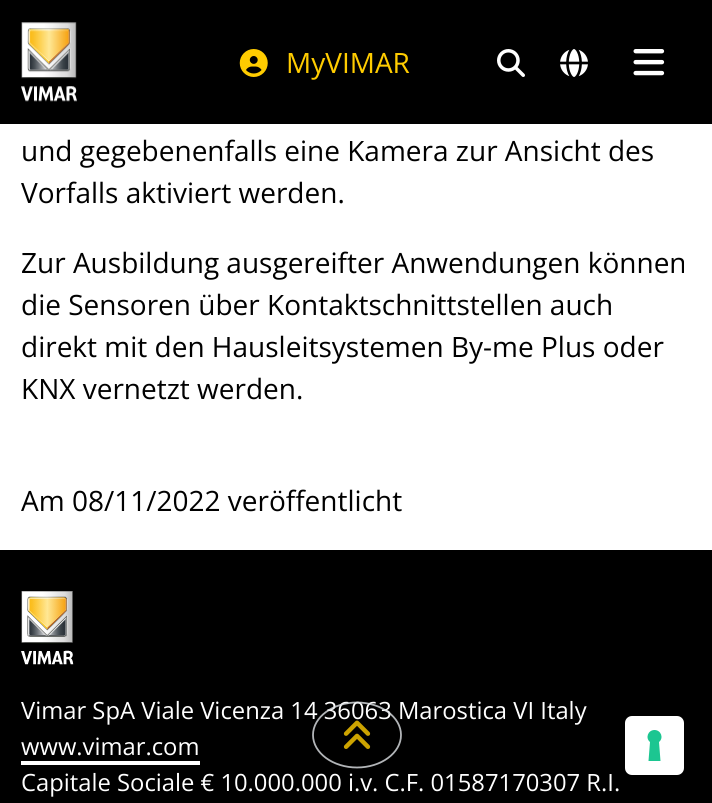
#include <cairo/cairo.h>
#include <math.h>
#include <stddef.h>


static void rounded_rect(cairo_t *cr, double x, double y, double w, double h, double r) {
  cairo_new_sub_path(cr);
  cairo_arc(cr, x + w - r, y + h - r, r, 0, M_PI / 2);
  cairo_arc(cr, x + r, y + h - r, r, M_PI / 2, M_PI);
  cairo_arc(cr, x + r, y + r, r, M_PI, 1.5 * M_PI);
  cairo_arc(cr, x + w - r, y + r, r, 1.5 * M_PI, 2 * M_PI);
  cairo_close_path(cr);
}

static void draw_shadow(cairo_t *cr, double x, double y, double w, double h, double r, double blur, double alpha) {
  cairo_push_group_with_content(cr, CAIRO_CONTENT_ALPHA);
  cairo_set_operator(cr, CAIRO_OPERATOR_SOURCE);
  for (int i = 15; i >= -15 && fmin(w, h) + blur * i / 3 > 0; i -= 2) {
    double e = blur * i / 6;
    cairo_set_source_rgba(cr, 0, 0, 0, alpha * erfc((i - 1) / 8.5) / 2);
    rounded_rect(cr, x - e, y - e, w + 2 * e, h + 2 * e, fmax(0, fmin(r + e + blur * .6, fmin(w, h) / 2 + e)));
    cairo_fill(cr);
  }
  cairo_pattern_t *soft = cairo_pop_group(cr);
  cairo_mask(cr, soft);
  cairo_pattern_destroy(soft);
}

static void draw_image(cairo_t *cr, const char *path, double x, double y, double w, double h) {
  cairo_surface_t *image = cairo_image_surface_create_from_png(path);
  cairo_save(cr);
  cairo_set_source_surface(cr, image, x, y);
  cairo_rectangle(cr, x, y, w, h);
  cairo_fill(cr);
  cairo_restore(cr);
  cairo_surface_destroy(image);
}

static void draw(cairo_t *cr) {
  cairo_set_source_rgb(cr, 1, 1, 1);
  cairo_paint(cr);
  cairo_set_source_rgb(cr, 0, 0, 0);
  cairo_rectangle(cr, 0, 0, 712, 124);
  cairo_fill(cr);
  draw_image(cr, "images/1.png", 21, 22, 56, 80);
  draw_image(cr, "images/2.png", 239, 49, 29, 28);
  draw_image(cr, "images/3.png", 497, 49, 28, 28);
  draw_image(cr, "images/4.png", 560, 49, 28, 28);
  draw_image(cr, "images/5.png", 633, 49, 32, 27);
  cairo_rectangle(cr, 0, 550, 712, 253);
  cairo_fill(cr);
  cairo_save(cr);
  cairo_set_fill_rule(cr, CAIRO_FILL_RULE_EVEN_ODD);
  cairo_new_path(cr);
  cairo_move_to(cr, 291, 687);
  cairo_line_to(cr, 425, 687);
  cairo_line_to(cr, 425, 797);
  cairo_line_to(cr, 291, 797);
  cairo_close_path(cr);
  cairo_move_to(cr, 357, 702);
  cairo_curve_to(cr, 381.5, 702, 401.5, 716.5, 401.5, 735);
  cairo_curve_to(cr, 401.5, 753.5, 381.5, 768, 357, 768);
  cairo_curve_to(cr, 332.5, 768, 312.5, 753.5, 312.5, 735);
  cairo_curve_to(cr, 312.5, 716.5, 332.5, 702, 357, 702);
  cairo_close_path(cr);
  cairo_clip(cr);
  cairo_set_source_rgb(cr, 0, 0, 0);
  draw_shadow(cr, 313, 709, 90, 66, 33, 7, 0.24);
  cairo_restore(cr);
  draw_image(cr, "images/7.png", 21, 591, 53, 74);
  cairo_set_source_rgb(cr, 1, 1, 1);
  cairo_rectangle(cr, 21, 761, 179, 4);
  cairo_fill(cr);
  rounded_rect(cr, 625, 716, 59, 59, 7);
  cairo_fill(cr);
  cairo_set_source_rgb(cr, 28 / 255.0, 198 / 255.0, 145 / 255.0);
  cairo_set_fill_rule(cr, CAIRO_FILL_RULE_EVEN_ODD);
  cairo_new_path(cr);
  cairo_move_to(cr, 654.5, 730);
  cairo_curve_to(cr, 661, 730, 664, 738, 659, 742);
  cairo_line_to(cr, 660.5, 761);
  cairo_line_to(cr, 648.5, 761);
  cairo_line_to(cr, 650, 742);
  cairo_curve_to(cr, 645, 738, 648, 730, 654.5, 730);
  cairo_close_path(cr);
  cairo_fill(cr);
  cairo_select_font_face(cr, "Open Sans", CAIRO_FONT_SLANT_NORMAL, CAIRO_FONT_WEIGHT_NORMAL);
  cairo_set_font_size(cr, 28);
  cairo_set_source_rgb(cr, 1, 204 / 255.0, 0);
  cairo_move_to(cr, 286, 73);
  cairo_show_text(cr, "MyVIMAR");
  cairo_set_source_rgb(cr, 0, 0, 0);
  cairo_move_to(cr, 21, 161);
  cairo_show_text(cr, "und gegebenenfalls eine Kamera zur Ansicht des");
  cairo_move_to(cr, 21, 203);
  cairo_show_text(cr, "Vorfalls aktiviert werden.");
  cairo_move_to(cr, 21, 273);
  cairo_show_text(cr, "Zur Ausbildung ausgereifter Anwendungen können");
  cairo_move_to(cr, 21, 315);
  cairo_show_text(cr, "die Sensoren über Kontaktschnittstellen auch");
  cairo_move_to(cr, 21, 357);
  cairo_show_text(cr, "direkt mit den Hausleitsystemen By-me Plus oder");
  cairo_move_to(cr, 21, 399);
  cairo_show_text(cr, "KNX vernetzt werden.");
  cairo_move_to(cr, 21, 511);
  cairo_show_text(cr, "Am 08/11/2022 veröffentlicht");
  cairo_set_font_size(cr, 23.8);
  cairo_set_source_rgb(cr, 1, 1, 1);
  cairo_move_to(cr, 21, 719);
  cairo_show_text(cr, "Vimar SpA Viale Vicenza 14 36063 Marostica VI Italy");
  cairo_new_path(cr);
  cairo_move_to(cr, 357, 702.5);
  cairo_curve_to(cr, 381, 702.5, 401, 717, 401, 735);
  cairo_curve_to(cr, 401, 753, 381, 767.5, 357, 767.5);
  cairo_curve_to(cr, 333, 767.5, 313, 753, 313, 735);
  cairo_curve_to(cr, 313, 717, 333, 702.5, 357, 702.5);
  cairo_close_path(cr);
  cairo_set_source_rgba(cr, 222 / 255.0, 226 / 255.0, 230 / 255.0, 0.8);
  cairo_set_line_width(cr, 1.8);
  cairo_stroke(cr);
  draw_image(cr, "images/6.png", 343, 720, 28, 29);
  cairo_set_source_rgb(cr, 1, 1, 1);
  cairo_move_to(cr, 21, 755);
  cairo_show_text(cr, "www.vimar.com");
  cairo_move_to(cr, 21, 791);
  cairo_show_text(cr, "Capitale Sociale € 10.000.000 i.v. C.F. 01587170307 R.I.");
}

int main(void) {
  cairo_surface_t *surface = cairo_image_surface_create(CAIRO_FORMAT_RGB24, 712, 803);
  cairo_t *cr = cairo_create(surface);
  cairo_font_options_t *options = cairo_font_options_create();
  cairo_font_options_set_hint_metrics(options, CAIRO_HINT_METRICS_OFF);
  cairo_font_options_set_hint_style(options, CAIRO_HINT_STYLE_NONE);
  cairo_set_font_options(cr, options);
  cairo_set_miter_limit(cr, 4);
  draw(cr);
  cairo_surface_write_to_png(surface, "out.png");
  cairo_font_options_destroy(options);
  cairo_destroy(cr);
  cairo_surface_destroy(surface);
  return 0;
}
